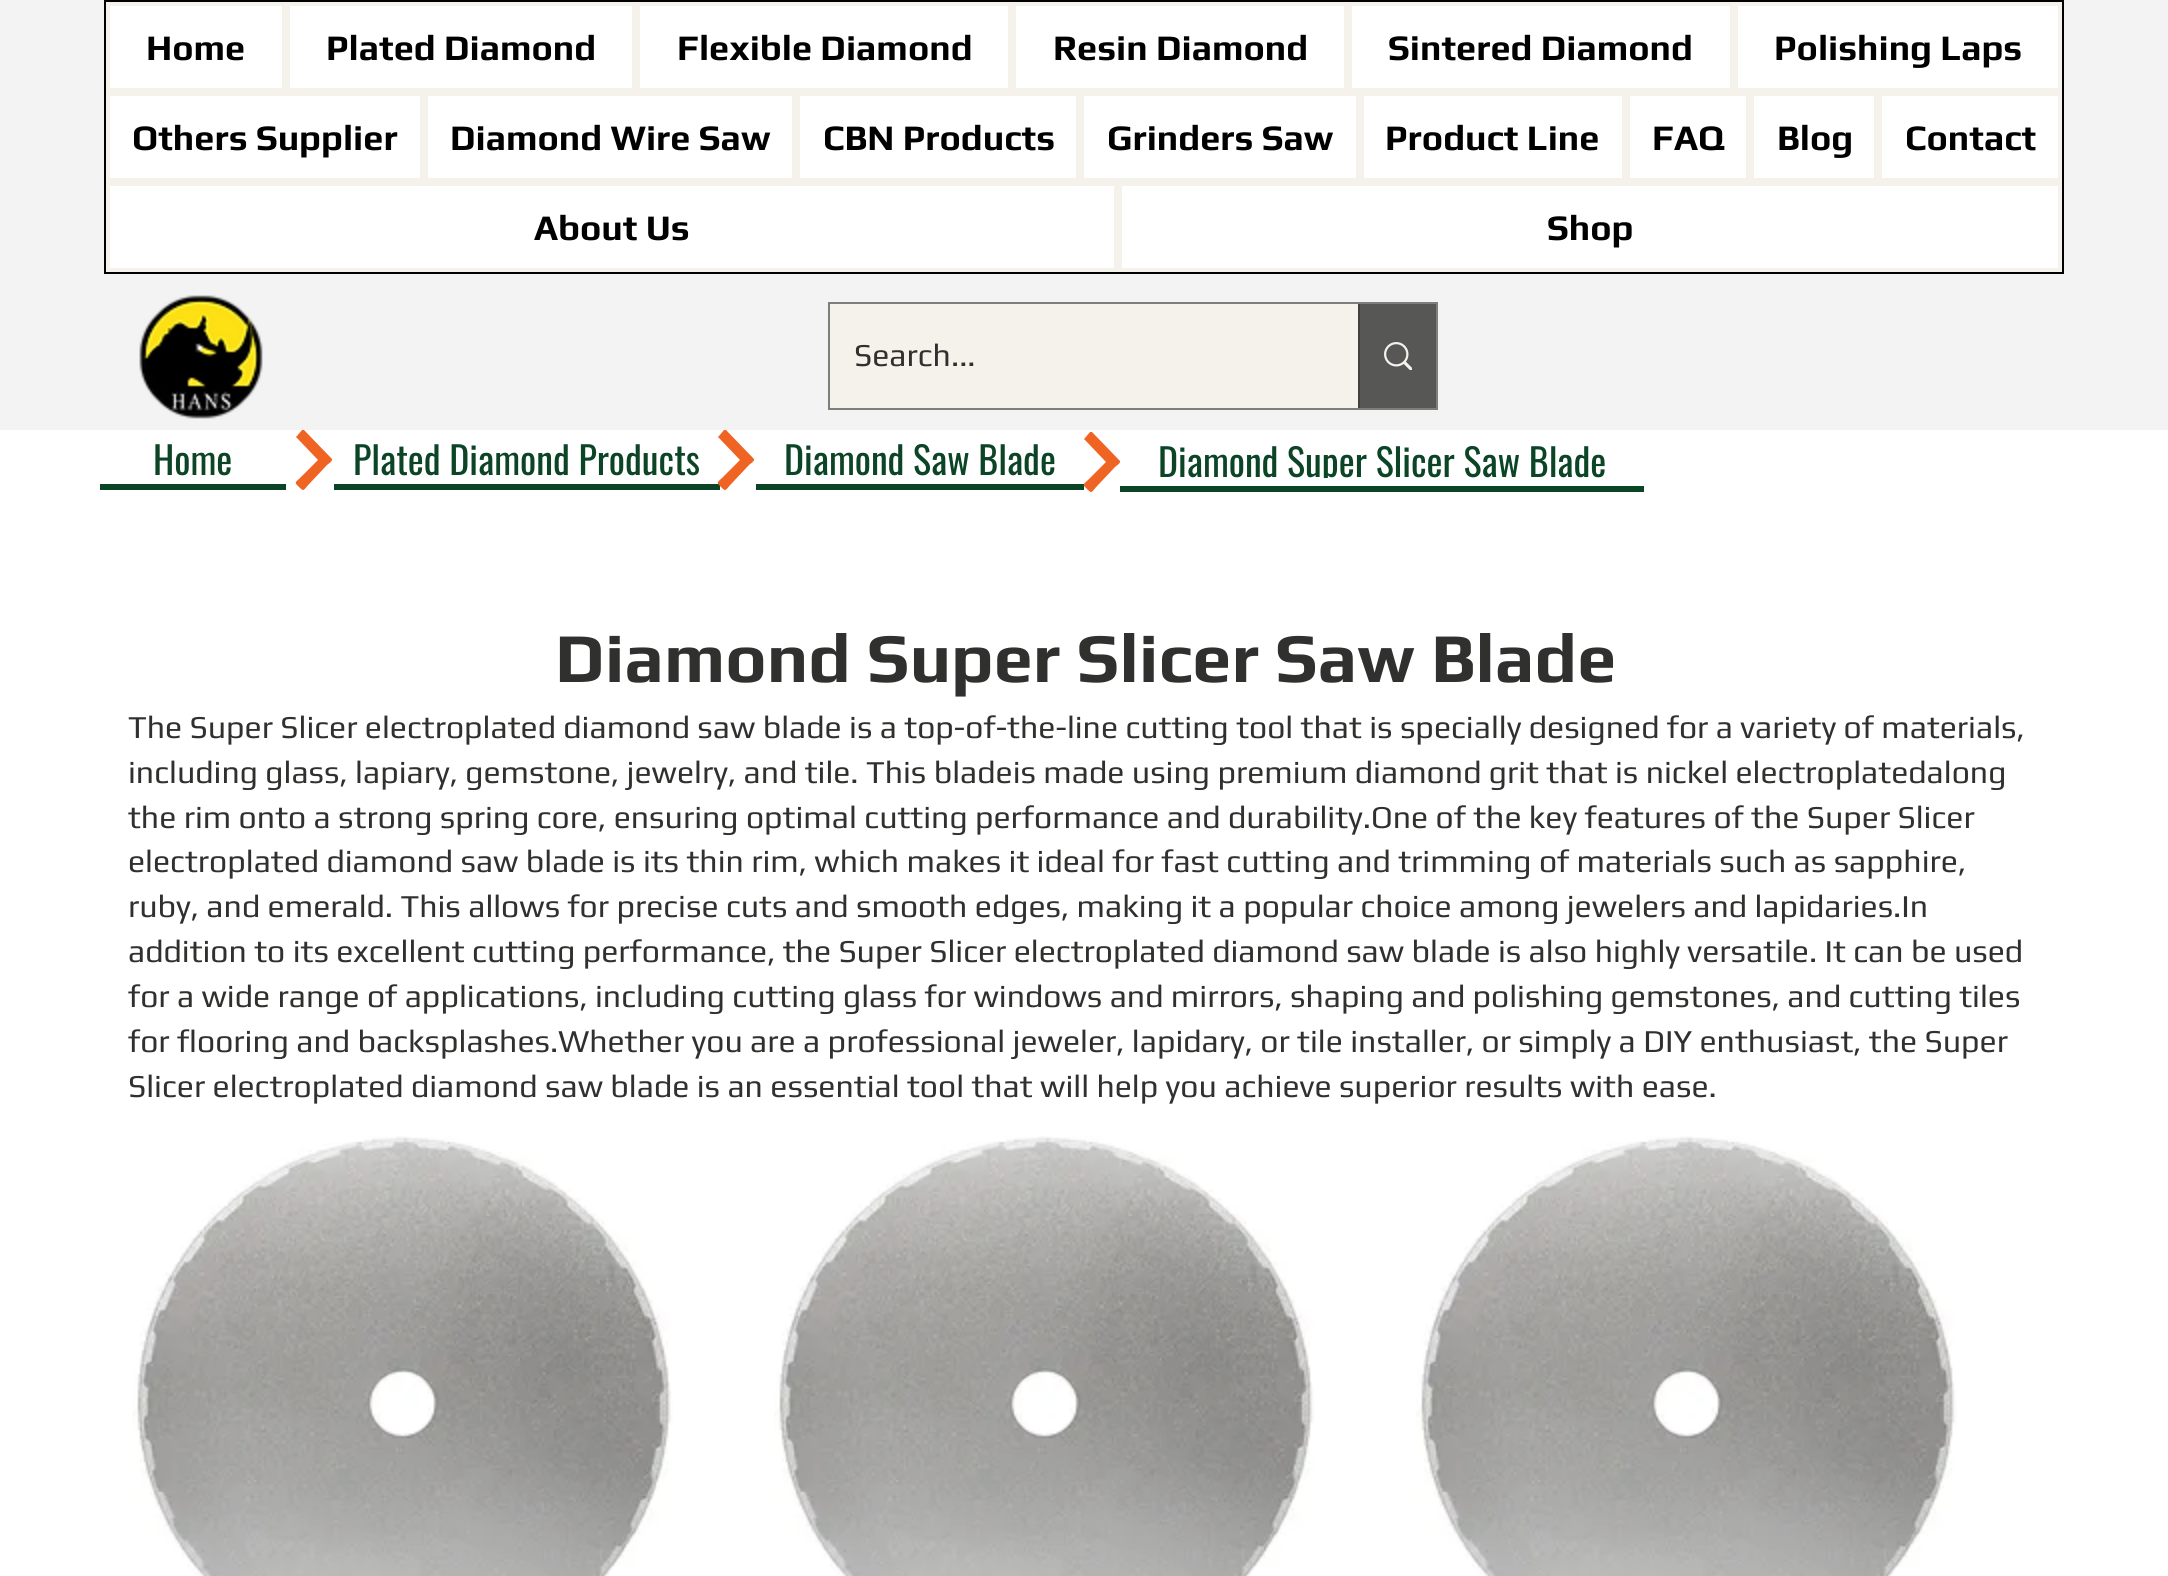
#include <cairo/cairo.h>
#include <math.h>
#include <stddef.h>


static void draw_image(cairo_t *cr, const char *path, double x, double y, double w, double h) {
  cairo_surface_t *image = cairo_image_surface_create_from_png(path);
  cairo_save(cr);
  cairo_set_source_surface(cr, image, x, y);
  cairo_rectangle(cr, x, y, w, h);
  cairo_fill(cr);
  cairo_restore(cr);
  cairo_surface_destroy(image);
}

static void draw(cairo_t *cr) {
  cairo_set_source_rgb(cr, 243 / 255.0, 243 / 255.0, 243 / 255.0);
  cairo_paint(cr);
  cairo_set_source_rgb(cr, 1, 1, 1);
  cairo_rectangle(cr, 110, 6, 1948, 262);
  cairo_fill(cr);
  cairo_rectangle(cr, 105, 1, 1958, 272);
  cairo_set_source_rgb(cr, 0, 0, 0);
  cairo_stroke(cr);
  cairo_rectangle(cr, 108, 4, 176, 86);
  cairo_set_source_rgb(cr, 244 / 255.0, 242 / 255.0, 235 / 255.0);
  cairo_set_line_width(cr, 4);
  cairo_stroke(cr);
  cairo_rectangle(cr, 288, 4, 346, 86);
  cairo_stroke(cr);
  cairo_rectangle(cr, 638, 4, 372, 86);
  cairo_stroke(cr);
  cairo_rectangle(cr, 1014, 4, 332, 86);
  cairo_stroke(cr);
  cairo_rectangle(cr, 1350, 4, 382, 86);
  cairo_stroke(cr);
  cairo_rectangle(cr, 1736, 4, 324, 86);
  cairo_stroke(cr);
  cairo_rectangle(cr, 108, 94, 314, 86);
  cairo_stroke(cr);
  cairo_rectangle(cr, 426, 94, 368, 86);
  cairo_stroke(cr);
  cairo_rectangle(cr, 798, 94, 280, 86);
  cairo_stroke(cr);
  cairo_rectangle(cr, 1082, 94, 276, 86);
  cairo_stroke(cr);
  cairo_rectangle(cr, 1362, 94, 262, 86);
  cairo_stroke(cr);
  cairo_rectangle(cr, 1628, 94, 120, 86);
  cairo_stroke(cr);
  cairo_rectangle(cr, 1752, 94, 124, 86);
  cairo_stroke(cr);
  cairo_rectangle(cr, 1880, 94, 180, 86);
  cairo_stroke(cr);
  cairo_rectangle(cr, 108, 184, 1008, 86);
  cairo_stroke(cr);
  cairo_rectangle(cr, 1120, 184, 940, 86);
  cairo_stroke(cr);
  draw_image(cr, "images/1.png", 139, 295, 124, 124);
  cairo_rectangle(cr, 829, 303, 608, 106);
  cairo_set_source_rgb(cr, 126 / 255.0, 126 / 255.0, 125 / 255.0);
  cairo_set_line_width(cr, 2);
  cairo_stroke(cr);
  cairo_set_source_rgb(cr, 244 / 255.0, 242 / 255.0, 235 / 255.0);
  cairo_rectangle(cr, 830, 304, 528, 104);
  cairo_fill(cr);
  cairo_set_source_rgb(cr, 87 / 255.0, 87 / 255.0, 85 / 255.0);
  cairo_rectangle(cr, 1360, 304, 76, 104);
  cairo_fill(cr);
  cairo_set_source_rgb(cr, 64 / 255.0, 64 / 255.0, 62 / 255.0);
  cairo_rectangle(cr, 1358, 304, 2, 104);
  cairo_fill(cr);
  draw_image(cr, "images/2.png", 1384, 342, 28, 28);
  cairo_set_source_rgb(cr, 1, 1, 1);
  cairo_rectangle(cr, 0, 430, 2168, 1146);
  cairo_fill(cr);
  cairo_set_source_rgb(cr, 12 / 255.0, 68 / 255.0, 38 / 255.0);
  cairo_rectangle(cr, 100, 484, 186, 6);
  cairo_fill(cr);
  cairo_set_source_rgb(cr, 239 / 255.0, 100 / 255.0, 35 / 255.0);
  cairo_new_path(cr);
  cairo_move_to(cr, 332, 459);
  cairo_line_to(cr, 304, 430);
  cairo_curve_to(cr, 303, 430, 302, 430, 302, 430);
  cairo_line_to(cr, 297, 436);
  cairo_curve_to(cr, 296, 436, 296, 438, 297, 438);
  cairo_line_to(cr, 318, 460);
  cairo_line_to(cr, 300, 478);
  cairo_curve_to(cr, 297, 481, 294, 482, 297, 485);
  cairo_curve_to(cr, 305, 493, 302, 491, 311, 482);
  cairo_line_to(cr, 327, 465);
  cairo_curve_to(cr, 328, 464, 333, 461, 332, 459);
  cairo_close_path(cr);
  cairo_fill(cr);
  cairo_set_source_rgb(cr, 12 / 255.0, 68 / 255.0, 38 / 255.0);
  cairo_rectangle(cr, 334, 484, 386, 6);
  cairo_fill(cr);
  cairo_set_source_rgb(cr, 239 / 255.0, 100 / 255.0, 35 / 255.0);
  cairo_new_path(cr);
  cairo_move_to(cr, 754, 459);
  cairo_line_to(cr, 726, 430);
  cairo_curve_to(cr, 725, 430, 724, 430, 724, 430);
  cairo_line_to(cr, 719, 436);
  cairo_curve_to(cr, 718, 436, 718, 438, 719, 438);
  cairo_line_to(cr, 740, 460);
  cairo_line_to(cr, 722, 478);
  cairo_curve_to(cr, 719, 481, 716, 482, 719, 485);
  cairo_curve_to(cr, 727, 493, 724, 491, 733, 482);
  cairo_line_to(cr, 749, 465);
  cairo_curve_to(cr, 750, 464, 755, 461, 754, 459);
  cairo_close_path(cr);
  cairo_fill(cr);
  cairo_set_source_rgb(cr, 12 / 255.0, 68 / 255.0, 38 / 255.0);
  cairo_rectangle(cr, 756, 484, 328, 6);
  cairo_fill(cr);
  cairo_set_source_rgb(cr, 239 / 255.0, 100 / 255.0, 35 / 255.0);
  cairo_new_path(cr);
  cairo_move_to(cr, 1120, 461);
  cairo_line_to(cr, 1092, 432);
  cairo_curve_to(cr, 1091, 432, 1090, 432, 1090, 432);
  cairo_line_to(cr, 1085, 438);
  cairo_curve_to(cr, 1084, 438, 1084, 440, 1085, 440);
  cairo_line_to(cr, 1106, 462);
  cairo_line_to(cr, 1088, 480);
  cairo_curve_to(cr, 1085, 483, 1082, 484, 1085, 487);
  cairo_curve_to(cr, 1093, 495, 1090, 493, 1099, 484);
  cairo_line_to(cr, 1115, 467);
  cairo_curve_to(cr, 1116, 466, 1121, 463, 1120, 461);
  cairo_close_path(cr);
  cairo_fill(cr);
  cairo_set_source_rgb(cr, 12 / 255.0, 68 / 255.0, 38 / 255.0);
  cairo_rectangle(cr, 1120, 486, 524, 6);
  cairo_fill(cr);
  draw_image(cr, "images/3.png", 132, 1136, 541, 440);
  draw_image(cr, "images/3.png", 774, 1136, 541, 440);
  draw_image(cr, "images/3.png", 1416, 1136, 541, 440);
  cairo_select_font_face(cr, "Play", CAIRO_FONT_SLANT_NORMAL, CAIRO_FONT_WEIGHT_BOLD);
  cairo_set_font_size(cr, 36);
  cairo_set_source_rgb(cr, 0, 0, 0);
  cairo_move_to(cr, 146, 60);
  cairo_show_text(cr, "Home");
  cairo_move_to(cr, 326, 60);
  cairo_show_text(cr, "Plated Diamond");
  cairo_move_to(cr, 677, 60);
  cairo_show_text(cr, "Flexible Diamond");
  cairo_move_to(cr, 1053, 60);
  cairo_show_text(cr, "Resin Diamond");
  cairo_move_to(cr, 1388, 60);
  cairo_show_text(cr, "Sintered Diamond");
  cairo_move_to(cr, 1774, 60);
  cairo_show_text(cr, "Polishing Laps");
  cairo_move_to(cr, 132, 150);
  cairo_show_text(cr, "Others Supplier");
  cairo_move_to(cr, 450, 150);
  cairo_show_text(cr, "Diamond Wire Saw");
  cairo_move_to(cr, 823, 150);
  cairo_show_text(cr, "CBN Products");
  cairo_move_to(cr, 1107, 150);
  cairo_show_text(cr, "Grinders Saw");
  cairo_move_to(cr, 1385, 150);
  cairo_show_text(cr, "Product Line");
  cairo_move_to(cr, 1652, 150);
  cairo_show_text(cr, "FAQ");
  cairo_move_to(cr, 1777, 150);
  cairo_show_text(cr, "Blog");
  cairo_move_to(cr, 1905, 150);
  cairo_show_text(cr, "Contact");
  cairo_move_to(cr, 534, 240);
  cairo_show_text(cr, "About Us");
  cairo_move_to(cr, 1547, 240);
  cairo_show_text(cr, "Shop");
  cairo_select_font_face(cr, "Play", CAIRO_FONT_SLANT_NORMAL, CAIRO_FONT_WEIGHT_NORMAL);
  cairo_set_font_size(cr, 32);
  cairo_set_source_rgb(cr, 48 / 255.0, 48 / 255.0, 47 / 255.0);
  cairo_move_to(cr, 854, 366);
  cairo_show_text(cr, "Search...");
  cairo_select_font_face(cr, "Oswald", CAIRO_FONT_SLANT_NORMAL, CAIRO_FONT_WEIGHT_NORMAL);
  cairo_set_font_size(cr, 38);
  cairo_set_source_rgb(cr, 12 / 255.0, 68 / 255.0, 38 / 255.0);
  cairo_move_to(cr, 153, 475);
  cairo_show_text(cr, "Home");
  cairo_move_to(cr, 353, 475);
  cairo_show_text(cr, "Plated Diamond Products");
  cairo_move_to(cr, 784, 475);
  cairo_show_text(cr, "Diamond Saw Blade");
  cairo_save(cr);
  cairo_rectangle(cr, 1158, 440, 448, 38);
  cairo_clip(cr);
  cairo_move_to(cr, 1158, 477);
  cairo_show_text(cr, "Diamond Super Slicer Saw Blade");
  cairo_restore(cr);
  cairo_select_font_face(cr, "Play", CAIRO_FONT_SLANT_NORMAL, CAIRO_FONT_WEIGHT_BOLD);
  cairo_set_font_size(cr, 70);
  cairo_set_source_rgb(cr, 48 / 255.0, 48 / 255.0, 47 / 255.0);
  cairo_move_to(cr, 555, 682);
  cairo_show_text(cr, "Diamond Super Slicer Saw Blade");
  cairo_select_font_face(cr, "Play", CAIRO_FONT_SLANT_NORMAL, CAIRO_FONT_WEIGHT_NORMAL);
  cairo_set_font_size(cr, 32);
  cairo_move_to(cr, 128, 738);
  cairo_show_text(cr, "The Super Slicer electroplated diamond saw blade is a top-of-the-line cutting tool that is specially designed for a variety of materials,");
  cairo_move_to(cr, 128, 783);
  cairo_show_text(cr, "including glass, lapiary, gemstone, jewelry, and tile. This bladeis made using premium diamond grit that is nickel electroplatedalong");
  cairo_move_to(cr, 128, 828);
  cairo_show_text(cr, "the rim onto a strong spring core, ensuring optimal cutting performance and durability.One of the key features of the Super Slicer");
  cairo_move_to(cr, 128, 872);
  cairo_show_text(cr, "electroplated diamond saw blade is its thin rim, which makes it ideal for fast cutting and trimming of materials such as sapphire,");
  cairo_move_to(cr, 128, 917);
  cairo_show_text(cr, "ruby, and emerald. This allows for precise cuts and smooth edges, making it a popular choice among jewelers and lapidaries.In");
  cairo_move_to(cr, 128, 962);
  cairo_show_text(cr, "addition to its excellent cutting performance, the Super Slicer electroplated diamond saw blade is also highly versatile. It can be used");
  cairo_move_to(cr, 128, 1007);
  cairo_show_text(cr, "for a wide range of applications, including cutting glass for windows and mirrors, shaping and polishing gemstones, and cutting tiles");
  cairo_move_to(cr, 128, 1052);
  cairo_show_text(cr, "for flooring and backsplashes.Whether you are a professional jeweler, lapidary, or tile installer, or simply a DIY enthusiast, the Super");
  cairo_move_to(cr, 128, 1097);
  cairo_show_text(cr, "Slicer electroplated diamond saw blade is an essential tool that will help you achieve superior results with ease.");
}

int main(void) {
  cairo_surface_t *surface = cairo_image_surface_create(CAIRO_FORMAT_RGB24, 2168, 1576);
  cairo_t *cr = cairo_create(surface);
  cairo_font_options_t *options = cairo_font_options_create();
  cairo_font_options_set_hint_metrics(options, CAIRO_HINT_METRICS_OFF);
  cairo_font_options_set_hint_style(options, CAIRO_HINT_STYLE_NONE);
  cairo_set_font_options(cr, options);
  cairo_set_miter_limit(cr, 4);
  draw(cr);
  cairo_surface_write_to_png(surface, "out.png");
  cairo_font_options_destroy(options);
  cairo_destroy(cr);
  cairo_surface_destroy(surface);
  return 0;
}
